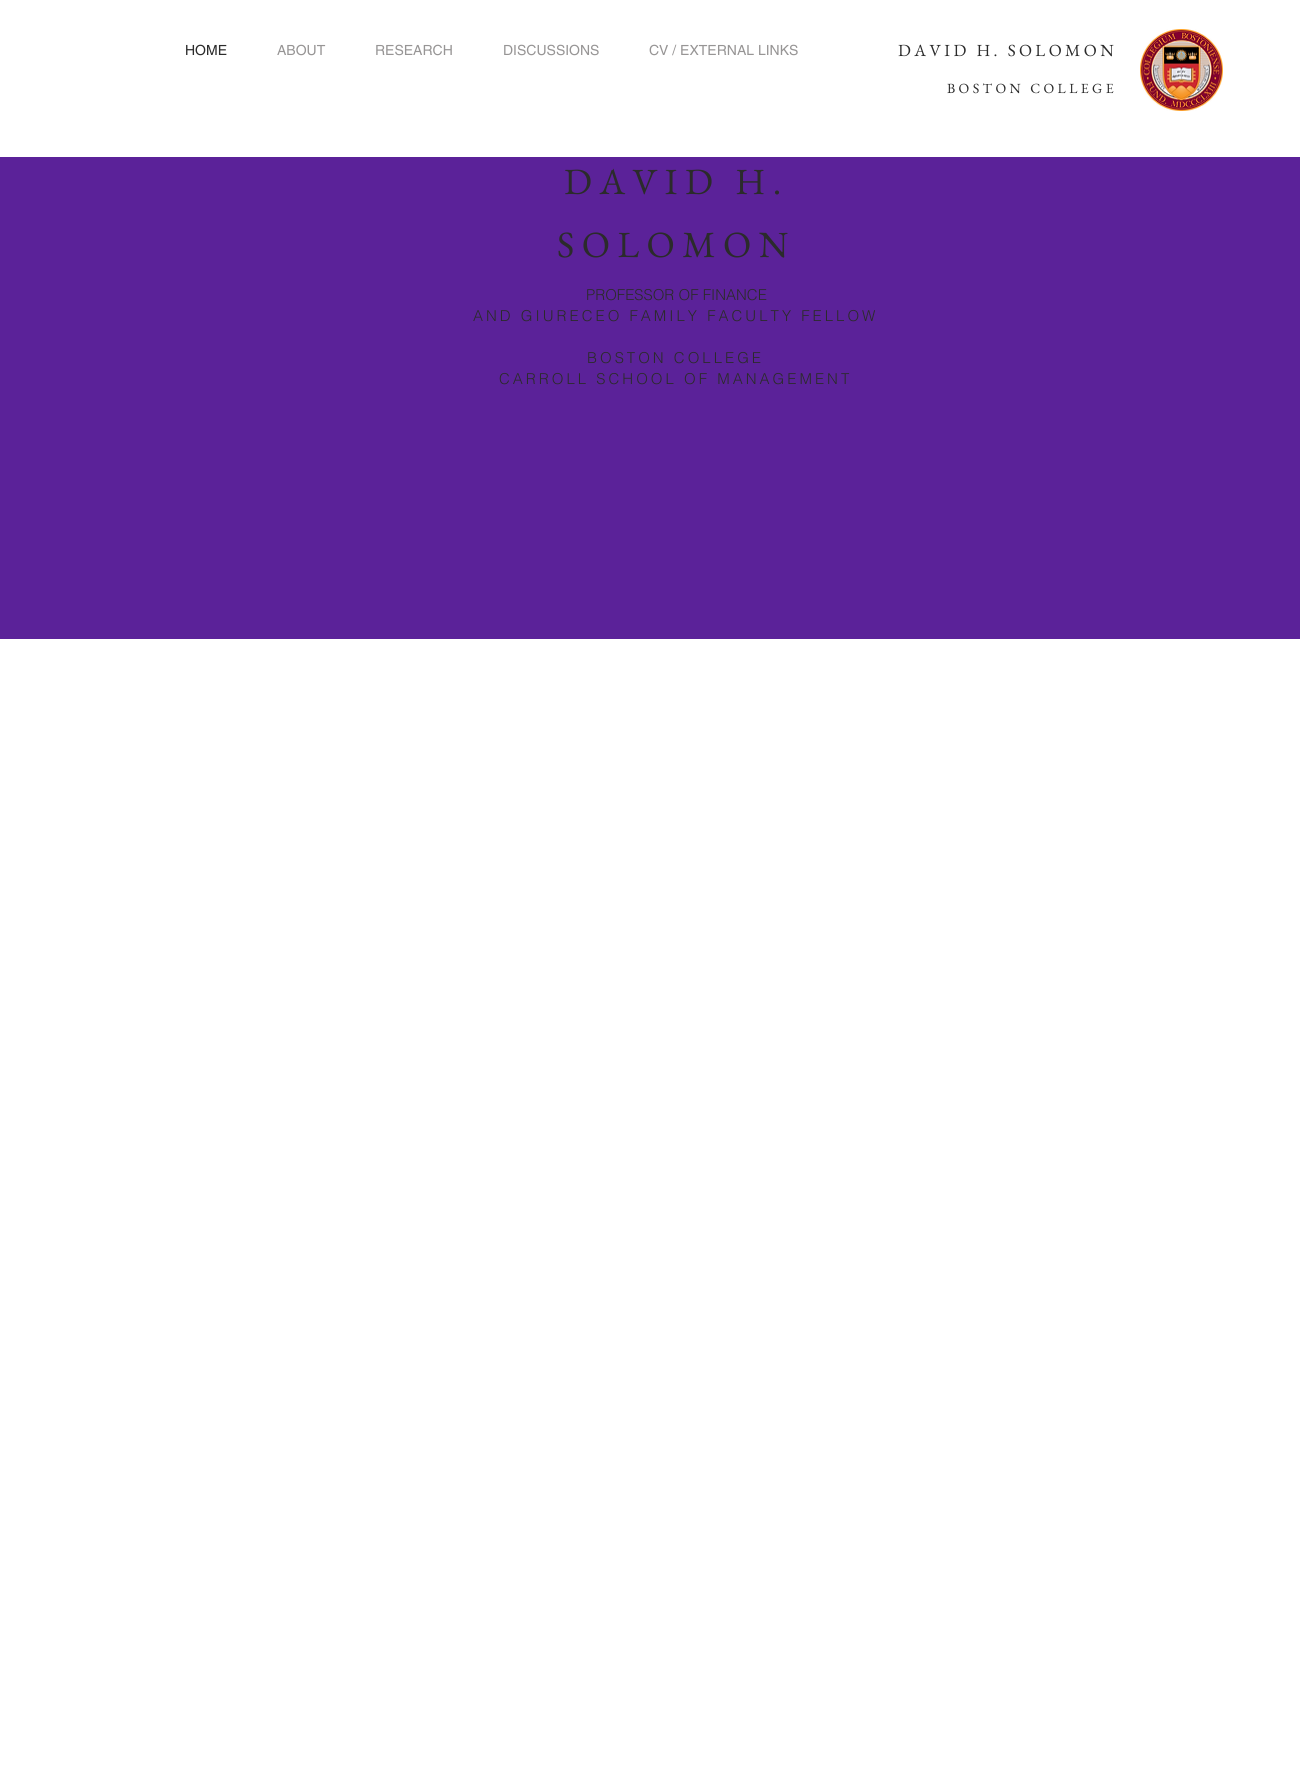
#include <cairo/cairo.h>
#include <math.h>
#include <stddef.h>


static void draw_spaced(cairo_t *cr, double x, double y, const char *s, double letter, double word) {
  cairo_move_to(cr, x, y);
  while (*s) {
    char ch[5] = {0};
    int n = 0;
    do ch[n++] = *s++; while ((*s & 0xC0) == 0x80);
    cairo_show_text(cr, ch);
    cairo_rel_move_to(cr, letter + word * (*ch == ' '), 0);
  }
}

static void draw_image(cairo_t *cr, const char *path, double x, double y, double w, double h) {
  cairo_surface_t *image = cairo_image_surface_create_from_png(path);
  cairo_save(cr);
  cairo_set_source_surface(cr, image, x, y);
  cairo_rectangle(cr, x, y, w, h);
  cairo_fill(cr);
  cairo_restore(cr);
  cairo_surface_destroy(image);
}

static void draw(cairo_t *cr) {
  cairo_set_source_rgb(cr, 1, 1, 1);
  cairo_paint(cr);
  draw_image(cr, "images/1.png", 1140, 29, 83, 82);
  cairo_set_source_rgb(cr, 91 / 255.0, 34 / 255.0, 153 / 255.0);
  cairo_rectangle(cr, 0, 157, 1300, 482);
  cairo_fill(cr);
  cairo_select_font_face(cr, "helvetica", CAIRO_FONT_SLANT_NORMAL, CAIRO_FONT_WEIGHT_NORMAL);
  cairo_set_font_size(cr, 14);
  cairo_set_source_rgb(cr, 43 / 255.0, 43 / 255.0, 43 / 255.0);
  cairo_move_to(cr, 185, 55);
  cairo_show_text(cr, "HOME");
  cairo_set_source_rgb(cr, 151 / 255.0, 149 / 255.0, 149 / 255.0);
  cairo_move_to(cr, 277, 55);
  cairo_show_text(cr, "ABOUT");
  cairo_move_to(cr, 375, 55);
  cairo_show_text(cr, "RESEARCH");
  cairo_move_to(cr, 503, 55);
  cairo_show_text(cr, "DISCUSSIONS");
  cairo_move_to(cr, 649, 55);
  cairo_show_text(cr, "CV / EXTERNAL LINKS");
  cairo_select_font_face(cr, "EB Garamond", CAIRO_FONT_SLANT_NORMAL, CAIRO_FONT_WEIGHT_NORMAL);
  cairo_set_font_size(cr, 17);
  cairo_set_source_rgb(cr, 43 / 255.0, 43 / 255.0, 43 / 255.0);
  draw_spaced(cr, 898, 56, "DAVID H. SOLOMON", 3.4, 0);
  cairo_set_font_size(cr, 14);
  draw_spaced(cr, 947, 93, "BOSTON COLLEGE", 3.4, 0);
  cairo_set_font_size(cr, 37);
  draw_spaced(cr, 564, 194, "DAVID H.", 7.5, 0);
  draw_spaced(cr, 557, 257, "SOLOMON", 7.5, 0);
  cairo_select_font_face(cr, "helvetica Light", CAIRO_FONT_SLANT_NORMAL, CAIRO_FONT_WEIGHT_NORMAL);
  cairo_set_font_size(cr, 15);
  cairo_move_to(cr, 586, 300);
  cairo_show_text(cr, "PROFESSOR OF FINANCE");
  draw_spaced(cr, 473, 321, "AND GIURECEO FAMILY FACULTY FELLOW", 3, 0);
  draw_spaced(cr, 587, 363, "BOSTON COLLEGE", 3, 0);
  draw_spaced(cr, 499, 384, "CARROLL SCHOOL OF MANAGEMENT", 3, 0);
}

int main(void) {
  cairo_surface_t *surface = cairo_image_surface_create(CAIRO_FORMAT_RGB24, 1300, 1787);
  cairo_t *cr = cairo_create(surface);
  cairo_font_options_t *options = cairo_font_options_create();
  cairo_font_options_set_hint_metrics(options, CAIRO_HINT_METRICS_OFF);
  cairo_font_options_set_hint_style(options, CAIRO_HINT_STYLE_NONE);
  cairo_set_font_options(cr, options);
  cairo_set_miter_limit(cr, 4);
  draw(cr);
  cairo_surface_write_to_png(surface, "out.png");
  cairo_font_options_destroy(options);
  cairo_destroy(cr);
  cairo_surface_destroy(surface);
  return 0;
}
